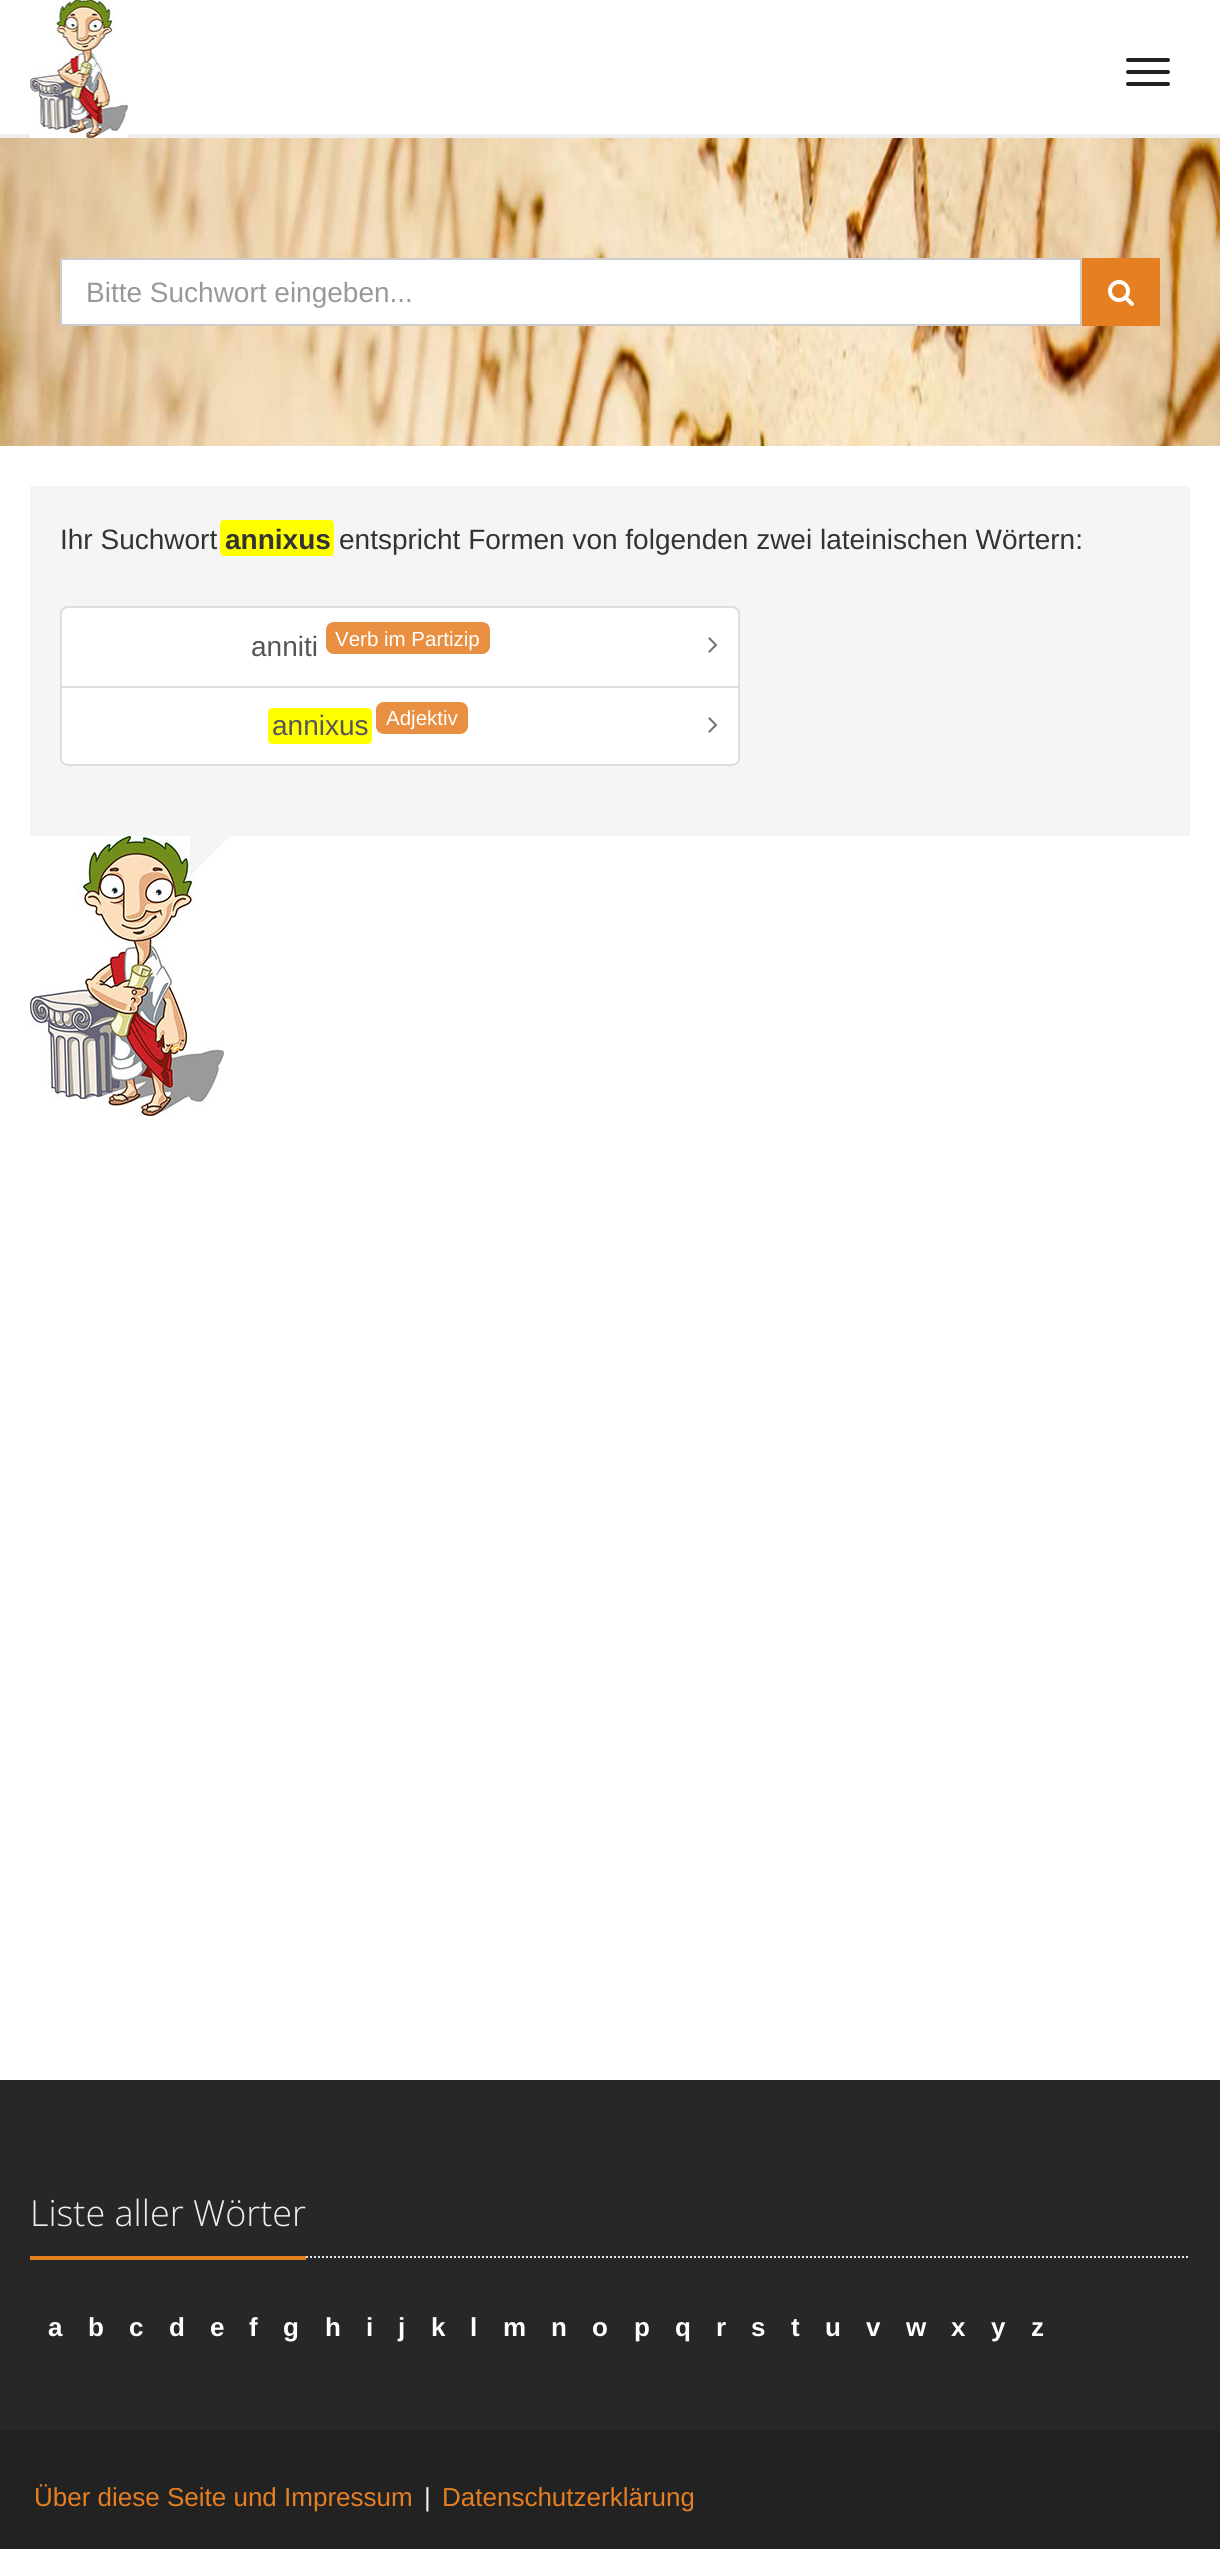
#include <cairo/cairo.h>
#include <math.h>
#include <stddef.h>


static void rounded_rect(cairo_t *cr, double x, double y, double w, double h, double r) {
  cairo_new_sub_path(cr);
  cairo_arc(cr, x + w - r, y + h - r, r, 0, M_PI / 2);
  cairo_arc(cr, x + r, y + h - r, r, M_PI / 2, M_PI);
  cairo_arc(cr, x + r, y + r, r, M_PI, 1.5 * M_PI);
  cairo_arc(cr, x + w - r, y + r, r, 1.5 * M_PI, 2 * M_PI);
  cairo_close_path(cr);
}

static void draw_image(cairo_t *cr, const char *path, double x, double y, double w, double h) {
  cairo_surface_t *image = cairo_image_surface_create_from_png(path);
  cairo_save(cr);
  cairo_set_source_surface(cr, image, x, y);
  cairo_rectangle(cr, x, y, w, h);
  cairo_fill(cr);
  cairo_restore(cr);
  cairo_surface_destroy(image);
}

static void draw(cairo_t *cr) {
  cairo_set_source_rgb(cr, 1, 1, 1);
  cairo_paint(cr);
  cairo_set_source_rgb(cr, 238 / 255.0, 238 / 255.0, 238 / 255.0);
  cairo_rectangle(cr, 0, 134, 1220, 4);
  cairo_fill(cr);
  draw_image(cr, "images/1.png", 30, 0, 98, 138);
  cairo_set_source_rgb(cr, 34 / 255.0, 34 / 255.0, 34 / 255.0);
  rounded_rect(cr, 1126, 58, 44, 4, 2);
  cairo_fill(cr);
  rounded_rect(cr, 1126, 70, 44, 4, 2);
  cairo_fill(cr);
  rounded_rect(cr, 1126, 82, 44, 4, 2);
  cairo_fill(cr);
  draw_image(cr, "images/2.png", 0, 138, 1220, 308);
  cairo_set_source_rgb(cr, 1, 1, 1);
  cairo_new_path(cr);
  cairo_move_to(cr, 68, 258);
  cairo_line_to(cr, 1082, 258);
  cairo_line_to(cr, 1082, 326);
  cairo_line_to(cr, 68, 326);
  cairo_curve_to(cr, 63.5, 326, 60, 322.5, 60, 318);
  cairo_line_to(cr, 60, 266);
  cairo_curve_to(cr, 60, 261.5, 63.5, 258, 68, 258);
  cairo_close_path(cr);
  cairo_fill(cr);
  cairo_rectangle(cr, 61, 259, 1020, 66);
  cairo_set_source_rgb(cr, 204 / 255.0, 204 / 255.0, 204 / 255.0);
  cairo_stroke(cr);
  cairo_set_source_rgb(cr, 230 / 255.0, 126 / 255.0, 34 / 255.0);
  cairo_rectangle(cr, 1082, 258, 78, 68);
  cairo_fill(cr);
  draw_image(cr, "images/3.png", 1108, 280, 26, 26);
  cairo_set_source_rgb(cr, 245 / 255.0, 245 / 255.0, 245 / 255.0);
  cairo_rectangle(cr, 30, 486, 1160, 350);
  cairo_fill(cr);
  cairo_set_source_rgb(cr, 1, 1, 0);
  rounded_rect(cr, 221, 521, 112, 34, 3);
  cairo_fill_preserve(cr);
  cairo_stroke(cr);
  cairo_set_source_rgb(cr, 1, 1, 1);
  cairo_new_path(cr);
  cairo_move_to(cr, 68, 607);
  cairo_line_to(cr, 732, 607);
  cairo_curve_to(cr, 736, 607, 739, 610, 739, 614);
  cairo_line_to(cr, 739, 687);
  cairo_line_to(cr, 61, 687);
  cairo_line_to(cr, 61, 614);
  cairo_curve_to(cr, 61, 610, 64, 607, 68, 607);
  cairo_close_path(cr);
  cairo_fill_preserve(cr);
  cairo_set_source_rgb(cr, 221 / 255.0, 221 / 255.0, 221 / 255.0);
  cairo_stroke(cr);
  cairo_set_source_rgb(cr, 232 / 255.0, 143 / 255.0, 66 / 255.0);
  rounded_rect(cr, 326, 622, 164, 32, 8);
  cairo_fill(cr);
  draw_image(cr, "images/4.png", 708, 637, 10, 16);
  cairo_set_source_rgb(cr, 1, 1, 1);
  cairo_new_path(cr);
  cairo_move_to(cr, 61, 687);
  cairo_line_to(cr, 739, 687);
  cairo_line_to(cr, 739, 758);
  cairo_curve_to(cr, 739, 762, 736, 765, 732, 765);
  cairo_line_to(cr, 68, 765);
  cairo_curve_to(cr, 64, 765, 61, 762, 61, 758);
  cairo_close_path(cr);
  cairo_fill_preserve(cr);
  cairo_set_source_rgb(cr, 221 / 255.0, 221 / 255.0, 221 / 255.0);
  cairo_stroke(cr);
  cairo_set_source_rgb(cr, 1, 1, 0);
  rounded_rect(cr, 269, 709, 102, 34, 3);
  cairo_fill_preserve(cr);
  cairo_stroke(cr);
  cairo_set_source_rgb(cr, 232 / 255.0, 143 / 255.0, 66 / 255.0);
  rounded_rect(cr, 376, 702, 92, 32, 8);
  cairo_fill(cr);
  draw_image(cr, "images/4.png", 708, 717, 10, 16);
  draw_image(cr, "images/5.png", 30, 836, 194, 280);
  cairo_set_source_rgb(cr, 245 / 255.0, 245 / 255.0, 245 / 255.0);
  cairo_new_path(cr);
  cairo_move_to(cr, 190, 832);
  cairo_line_to(cr, 234, 832);
  cairo_line_to(cr, 190, 876);
  cairo_close_path(cr);
  cairo_fill(cr);
  cairo_set_source_rgb(cr, 39 / 255.0, 39 / 255.0, 39 / 255.0);
  cairo_rectangle(cr, 0, 2080, 1220, 350);
  cairo_fill(cr);
  cairo_new_path(cr);
  cairo_move_to(cr, 30, 2257);
  cairo_line_to(cr, 1190, 2257);
  cairo_set_source_rgb(cr, 228 / 255.0, 233 / 255.0, 240 / 255.0);
  cairo_set_dash(cr, (double[]){2, 2}, 2, 0);
  cairo_stroke(cr);
  cairo_set_source_rgb(cr, 230 / 255.0, 126 / 255.0, 34 / 255.0);
  cairo_rectangle(cr, 30, 2256, 276, 4);
  cairo_fill(cr);
  cairo_set_source_rgb(cr, 34 / 255.0, 34 / 255.0, 34 / 255.0);
  cairo_rectangle(cr, 0, 2430, 1220, 119);
  cairo_fill(cr);
  cairo_select_font_face(cr, "Liberation Sans", CAIRO_FONT_SLANT_NORMAL, CAIRO_FONT_WEIGHT_NORMAL);
  cairo_set_font_size(cr, 28);
  cairo_set_source_rgb(cr, 153 / 255.0, 153 / 255.0, 153 / 255.0);
  cairo_move_to(cr, 86, 302);
  cairo_show_text(cr, "Bitte Suchwort eingeben...");
  cairo_set_source_rgb(cr, 51 / 255.0, 51 / 255.0, 51 / 255.0);
  cairo_move_to(cr, 60, 549);
  cairo_show_text(cr, "Ihr Suchwort");
  cairo_select_font_face(cr, "Liberation Sans", CAIRO_FONT_SLANT_NORMAL, CAIRO_FONT_WEIGHT_BOLD);
  cairo_move_to(cr, 225, 549);
  cairo_show_text(cr, "annixus");
  cairo_select_font_face(cr, "Liberation Sans", CAIRO_FONT_SLANT_NORMAL, CAIRO_FONT_WEIGHT_NORMAL);
  cairo_move_to(cr, 339, 549);
  cairo_show_text(cr, "entspricht Formen von folgenden zwei lateinischen Wörtern:");
  cairo_set_source_rgb(cr, 85 / 255.0, 85 / 255.0, 85 / 255.0);
  cairo_move_to(cr, 251, 656);
  cairo_show_text(cr, "anniti");
  cairo_set_font_size(cr, 20.5);
  cairo_set_source_rgb(cr, 1, 1, 1);
  cairo_move_to(cr, 335, 646);
  cairo_show_text(cr, "Verb im Partizip");
  cairo_set_font_size(cr, 28);
  cairo_set_source_rgb(cr, 85 / 255.0, 85 / 255.0, 85 / 255.0);
  cairo_move_to(cr, 272, 735);
  cairo_show_text(cr, "annixus");
  cairo_set_font_size(cr, 20.5);
  cairo_set_source_rgb(cr, 1, 1, 1);
  cairo_move_to(cr, 386, 725);
  cairo_show_text(cr, "Adjektiv");
  cairo_select_font_face(cr, "Open Sans Light", CAIRO_FONT_SLANT_NORMAL, CAIRO_FONT_WEIGHT_NORMAL);
  cairo_set_font_size(cr, 36);
  cairo_set_source_rgb(cr, 238 / 255.0, 238 / 255.0, 238 / 255.0);
  cairo_move_to(cr, 30, 2226);
  cairo_show_text(cr, "Liste aller Wörter");
  cairo_select_font_face(cr, "Liberation Sans", CAIRO_FONT_SLANT_NORMAL, CAIRO_FONT_WEIGHT_BOLD);
  cairo_set_font_size(cr, 26);
  cairo_set_source_rgb(cr, 1, 1, 1);
  cairo_move_to(cr, 48, 2336);
  cairo_show_text(cr, "a");
  cairo_move_to(cr, 88, 2336);
  cairo_show_text(cr, "b");
  cairo_move_to(cr, 129, 2336);
  cairo_show_text(cr, "c");
  cairo_move_to(cr, 169, 2336);
  cairo_show_text(cr, "d");
  cairo_move_to(cr, 210, 2336);
  cairo_show_text(cr, "e");
  cairo_move_to(cr, 249, 2336);
  cairo_show_text(cr, "f");
  cairo_move_to(cr, 283, 2336);
  cairo_show_text(cr, "g");
  cairo_move_to(cr, 325, 2336);
  cairo_show_text(cr, "h");
  cairo_move_to(cr, 366, 2336);
  cairo_show_text(cr, "i");
  cairo_move_to(cr, 398, 2336);
  cairo_show_text(cr, "j");
  cairo_move_to(cr, 431, 2336);
  cairo_show_text(cr, "k");
  cairo_move_to(cr, 470, 2336);
  cairo_show_text(cr, "l");
  cairo_move_to(cr, 503, 2336);
  cairo_show_text(cr, "m");
  cairo_move_to(cr, 551, 2336);
  cairo_show_text(cr, "n");
  cairo_move_to(cr, 592, 2336);
  cairo_show_text(cr, "o");
  cairo_move_to(cr, 634, 2336);
  cairo_show_text(cr, "p");
  cairo_move_to(cr, 675, 2336);
  cairo_show_text(cr, "q");
  cairo_move_to(cr, 716, 2336);
  cairo_show_text(cr, "r");
  cairo_move_to(cr, 751, 2336);
  cairo_show_text(cr, "s");
  cairo_move_to(cr, 791, 2336);
  cairo_show_text(cr, "t");
  cairo_move_to(cr, 825, 2336);
  cairo_show_text(cr, "u");
  cairo_move_to(cr, 866, 2336);
  cairo_show_text(cr, "v");
  cairo_move_to(cr, 906, 2336);
  cairo_show_text(cr, "w");
  cairo_move_to(cr, 951, 2336);
  cairo_show_text(cr, "x");
  cairo_move_to(cr, 991, 2336);
  cairo_show_text(cr, "y");
  cairo_move_to(cr, 1031, 2336);
  cairo_show_text(cr, "z");
  cairo_select_font_face(cr, "Liberation Sans", CAIRO_FONT_SLANT_NORMAL, CAIRO_FONT_WEIGHT_NORMAL);
  cairo_set_source_rgb(cr, 230 / 255.0, 126 / 255.0, 34 / 255.0);
  cairo_move_to(cr, 34, 2506);
  cairo_show_text(cr, "Über diese Seite und Impressum");
  cairo_set_source_rgb(cr, 238 / 255.0, 238 / 255.0, 238 / 255.0);
  cairo_move_to(cr, 424, 2506);
  cairo_show_text(cr, "|");
  cairo_set_source_rgb(cr, 230 / 255.0, 126 / 255.0, 34 / 255.0);
  cairo_move_to(cr, 442, 2506);
  cairo_show_text(cr, "Datenschutzerklärung");
}

int main(void) {
  cairo_surface_t *surface = cairo_image_surface_create(CAIRO_FORMAT_RGB24, 1220, 2549);
  cairo_t *cr = cairo_create(surface);
  cairo_font_options_t *options = cairo_font_options_create();
  cairo_font_options_set_hint_metrics(options, CAIRO_HINT_METRICS_OFF);
  cairo_font_options_set_hint_style(options, CAIRO_HINT_STYLE_NONE);
  cairo_set_font_options(cr, options);
  cairo_set_miter_limit(cr, 4);
  draw(cr);
  cairo_surface_write_to_png(surface, "out.png");
  cairo_font_options_destroy(options);
  cairo_destroy(cr);
  cairo_surface_destroy(surface);
  return 0;
}
